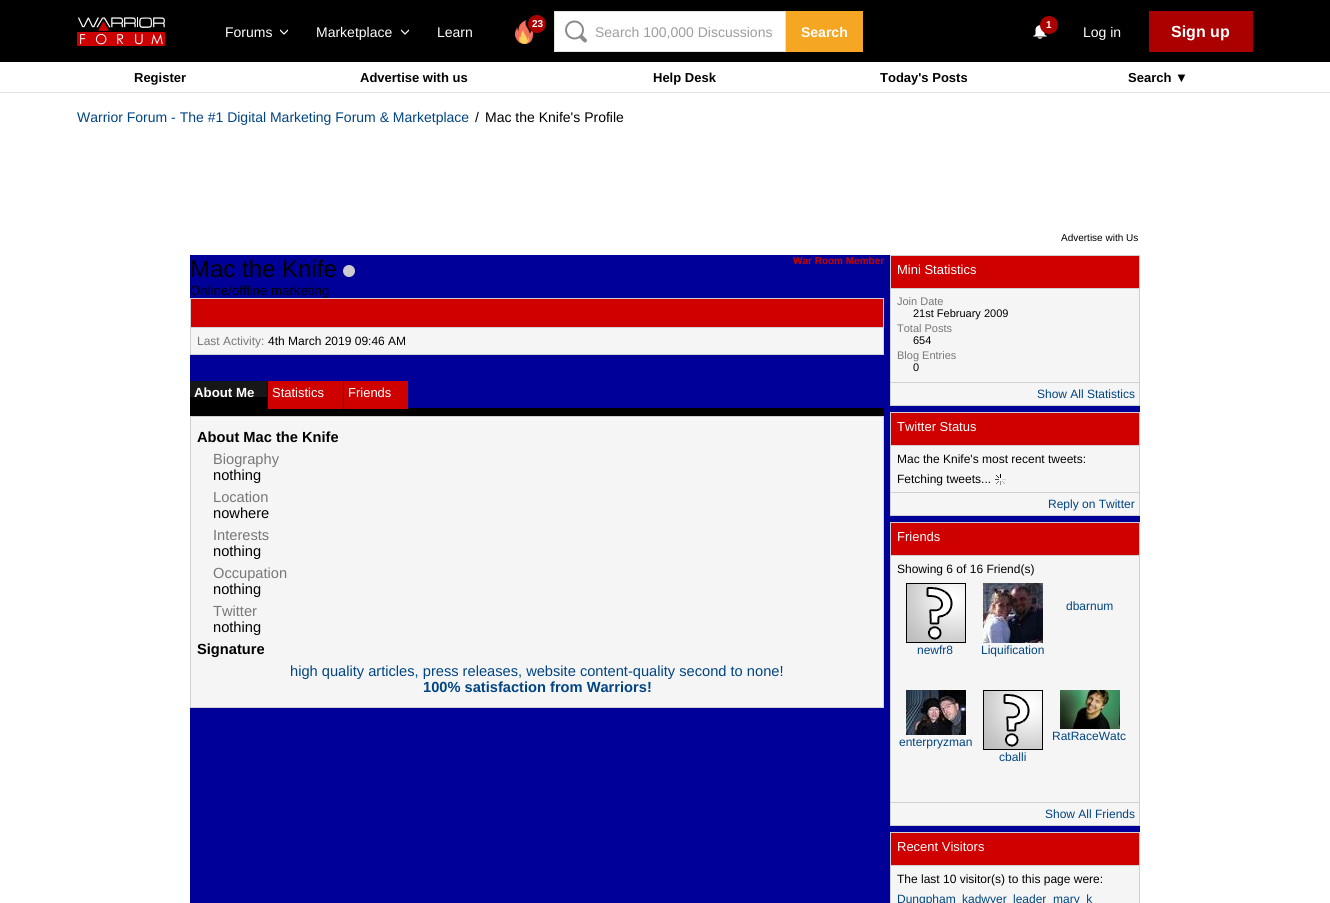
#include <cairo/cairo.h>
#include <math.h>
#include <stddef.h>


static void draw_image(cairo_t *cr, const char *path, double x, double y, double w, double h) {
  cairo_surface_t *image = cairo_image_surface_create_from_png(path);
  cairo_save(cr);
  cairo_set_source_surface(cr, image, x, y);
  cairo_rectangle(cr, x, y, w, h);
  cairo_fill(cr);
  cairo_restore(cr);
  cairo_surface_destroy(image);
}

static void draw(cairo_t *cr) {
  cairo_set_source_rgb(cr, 1, 1, 1);
  cairo_paint(cr);
  cairo_set_source_rgb(cr, 0, 0, 0);
  cairo_rectangle(cr, 0, 0, 1330, 62);
  cairo_fill(cr);
  draw_image(cr, "images/1.png", 77, 17, 88, 29);
  draw_image(cr, "images/2.png", 515, 20, 18, 24);
  cairo_set_source_rgb(cr, 170 / 255.0, 0, 0);
  cairo_arc(cr, 537, 24, 9, 0, 2 * M_PI);
  cairo_fill(cr);
  cairo_save(cr);
  cairo_rectangle(cr, 280, 20, 8, 24);
  cairo_clip(cr);
  cairo_new_path(cr);
  cairo_move_to(cr, 280, 30);
  cairo_line_to(cr, 284, 34);
  cairo_line_to(cr, 288, 30);
  cairo_set_source_rgb(cr, 1, 1, 1);
  cairo_set_line_width(cr, 1.2);
  cairo_set_line_cap(cr, CAIRO_LINE_CAP_ROUND);
  cairo_set_line_join(cr, CAIRO_LINE_JOIN_ROUND);
  cairo_stroke(cr);
  cairo_restore(cr);
  cairo_save(cr);
  cairo_rectangle(cr, 401, 20, 8, 24);
  cairo_clip(cr);
  cairo_new_path(cr);
  cairo_move_to(cr, 401, 30);
  cairo_line_to(cr, 405, 34);
  cairo_line_to(cr, 409, 30);
  cairo_set_source_rgb(cr, 1, 1, 1);
  cairo_set_line_width(cr, 1.2);
  cairo_set_line_cap(cr, CAIRO_LINE_CAP_ROUND);
  cairo_set_line_join(cr, CAIRO_LINE_JOIN_ROUND);
  cairo_stroke(cr);
  cairo_restore(cr);
  cairo_set_source_rgb(cr, 1, 1, 1);
  cairo_rectangle(cr, 555, 12, 230, 39);
  cairo_fill(cr);
  draw_image(cr, "images/3.png", 565, 20, 22, 23);
  cairo_rectangle(cr, 554.5, 11.5, 231, 40);
  cairo_set_source_rgb(cr, 226 / 255.0, 226 / 255.0, 226 / 255.0);
  cairo_set_line_width(cr, 1);
  cairo_stroke(cr);
  cairo_set_source_rgb(cr, 245 / 255.0, 166 / 255.0, 35 / 255.0);
  cairo_rectangle(cr, 786, 11, 77, 41);
  cairo_fill(cr);
  draw_image(cr, "images/4.png", 1033, 25, 14, 14);
  cairo_set_source_rgb(cr, 170 / 255.0, 0, 0);
  cairo_arc(cr, 1049, 25, 9, 0, 2 * M_PI);
  cairo_fill(cr);
  cairo_rectangle(cr, 1149, 11, 104, 41);
  cairo_fill(cr);
  cairo_set_source_rgb(cr, 226 / 255.0, 226 / 255.0, 226 / 255.0);
  cairo_rectangle(cr, 0, 92, 1330, 1);
  cairo_fill(cr);
  cairo_set_source_rgb(cr, 0, 0, 153 / 255.0);
  cairo_rectangle(cr, 190, 255, 950, 648);
  cairo_fill(cr);
  draw_image(cr, "images/5.png", 343, 265, 12, 12);
  cairo_set_source_rgb(cr, 208 / 255.0, 208 / 255.0, 208 / 255.0);
  cairo_rectangle(cr, 190, 298, 694, 57);
  cairo_fill(cr);
  cairo_set_source_rgb(cr, 206 / 255.0, 0, 0);
  cairo_rectangle(cr, 191, 299, 692, 28);
  cairo_fill(cr);
  cairo_set_source_rgb(cr, 245 / 255.0, 245 / 255.0, 245 / 255.0);
  cairo_rectangle(cr, 191, 328, 692, 26);
  cairo_fill(cr);
  cairo_set_source_rgb(cr, 0, 0, 0);
  cairo_rectangle(cr, 190, 397, 77, 11);
  cairo_fill(cr);
  cairo_set_source_rgb(cr, 23 / 255.0, 23 / 255.0, 23 / 255.0);
  cairo_rectangle(cr, 190, 381, 77, 16);
  cairo_fill(cr);
  cairo_set_source_rgb(cr, 0, 0, 0);
  cairo_rectangle(cr, 190, 408, 694, 8);
  cairo_fill(cr);
  cairo_set_source_rgb(cr, 206 / 255.0, 0, 0);
  cairo_rectangle(cr, 268, 381, 75, 28);
  cairo_fill(cr);
  cairo_rectangle(cr, 344, 381, 64, 28);
  cairo_fill(cr);
  cairo_set_source_rgb(cr, 208 / 255.0, 208 / 255.0, 208 / 255.0);
  cairo_rectangle(cr, 190, 416, 694, 292);
  cairo_fill(cr);
  cairo_set_source_rgb(cr, 245 / 255.0, 245 / 255.0, 245 / 255.0);
  cairo_rectangle(cr, 191, 417, 692, 290);
  cairo_fill(cr);
  cairo_set_source_rgb(cr, 208 / 255.0, 208 / 255.0, 208 / 255.0);
  cairo_rectangle(cr, 890, 255, 250, 151);
  cairo_fill(cr);
  cairo_set_source_rgb(cr, 206 / 255.0, 0, 0);
  cairo_rectangle(cr, 891, 256, 248, 32);
  cairo_fill(cr);
  cairo_set_source_rgb(cr, 245 / 255.0, 245 / 255.0, 245 / 255.0);
  cairo_rectangle(cr, 891, 289, 248, 93);
  cairo_fill(cr);
  cairo_rectangle(cr, 891, 383, 248, 22);
  cairo_fill(cr);
  cairo_set_source_rgb(cr, 208 / 255.0, 208 / 255.0, 208 / 255.0);
  cairo_rectangle(cr, 890, 412, 250, 104);
  cairo_fill(cr);
  cairo_set_source_rgb(cr, 206 / 255.0, 0, 0);
  cairo_rectangle(cr, 891, 413, 248, 32);
  cairo_fill(cr);
  cairo_set_source_rgb(cr, 245 / 255.0, 245 / 255.0, 245 / 255.0);
  cairo_rectangle(cr, 891, 446, 248, 46);
  cairo_fill(cr);
  draw_image(cr, "images/6.png", 995, 474, 11, 11);
  cairo_rectangle(cr, 891, 493, 248, 22);
  cairo_fill(cr);
  cairo_set_source_rgb(cr, 208 / 255.0, 208 / 255.0, 208 / 255.0);
  cairo_rectangle(cr, 890, 522, 250, 304);
  cairo_fill(cr);
  cairo_set_source_rgb(cr, 206 / 255.0, 0, 0);
  cairo_rectangle(cr, 891, 523, 248, 32);
  cairo_fill(cr);
  cairo_set_source_rgb(cr, 245 / 255.0, 245 / 255.0, 245 / 255.0);
  cairo_rectangle(cr, 891, 556, 248, 246);
  cairo_fill(cr);
  draw_image(cr, "images/7.png", 906, 583, 60, 60);
  draw_image(cr, "images/8.png", 983, 583, 60, 60);
  draw_image(cr, "images/9.png", 1060, 690, 60, 39);
  draw_image(cr, "images/10.png", 906, 690, 60, 45);
  draw_image(cr, "images/7.png", 983, 690, 60, 60);
  cairo_rectangle(cr, 891, 803, 248, 22);
  cairo_fill(cr);
  cairo_set_source_rgb(cr, 208 / 255.0, 208 / 255.0, 208 / 255.0);
  cairo_rectangle(cr, 890, 832, 250, 71);
  cairo_fill(cr);
  cairo_set_source_rgb(cr, 206 / 255.0, 0, 0);
  cairo_rectangle(cr, 891, 833, 248, 32);
  cairo_fill(cr);
  cairo_set_source_rgb(cr, 245 / 255.0, 245 / 255.0, 245 / 255.0);
  cairo_rectangle(cr, 891, 866, 248, 37);
  cairo_fill(cr);
  cairo_select_font_face(cr, "Liberation Sans", CAIRO_FONT_SLANT_NORMAL, CAIRO_FONT_WEIGHT_BOLD);
  cairo_set_font_size(cr, 10);
  cairo_set_source_rgb(cr, 1, 1, 1);
  cairo_move_to(cr, 532, 27);
  cairo_show_text(cr, "23");
  cairo_select_font_face(cr, "Liberation Sans", CAIRO_FONT_SLANT_NORMAL, CAIRO_FONT_WEIGHT_NORMAL);
  cairo_set_font_size(cr, 14);
  cairo_move_to(cr, 225, 37);
  cairo_show_text(cr, "Forums");
  cairo_move_to(cr, 316, 37);
  cairo_show_text(cr, "Marketplace");
  cairo_move_to(cr, 437, 37);
  cairo_show_text(cr, "Learn");
  cairo_set_source_rgb(cr, 157 / 255.0, 157 / 255.0, 157 / 255.0);
  cairo_move_to(cr, 595, 37);
  cairo_show_text(cr, "Search 100,000 Discussions");
  cairo_select_font_face(cr, "Liberation Sans", CAIRO_FONT_SLANT_NORMAL, CAIRO_FONT_WEIGHT_BOLD);
  cairo_set_source_rgb(cr, 1, 1, 1);
  cairo_move_to(cr, 801, 37);
  cairo_show_text(cr, "Search");
  cairo_set_font_size(cr, 10);
  cairo_move_to(cr, 1046, 28);
  cairo_show_text(cr, "1");
  cairo_select_font_face(cr, "Liberation Sans", CAIRO_FONT_SLANT_NORMAL, CAIRO_FONT_WEIGHT_NORMAL);
  cairo_set_font_size(cr, 14);
  cairo_move_to(cr, 1083, 37);
  cairo_show_text(cr, "Log in");
  cairo_select_font_face(cr, "Liberation Sans", CAIRO_FONT_SLANT_NORMAL, CAIRO_FONT_WEIGHT_BOLD);
  cairo_set_font_size(cr, 16);
  cairo_move_to(cr, 1171, 37);
  cairo_show_text(cr, "Sign up");
  cairo_set_font_size(cr, 13);
  cairo_set_source_rgb(cr, 0, 0, 0);
  cairo_move_to(cr, 134, 82);
  cairo_show_text(cr, "Register");
  cairo_move_to(cr, 360, 82);
  cairo_show_text(cr, "Advertise with us");
  cairo_move_to(cr, 653, 82);
  cairo_show_text(cr, "Help Desk");
  cairo_move_to(cr, 880, 82);
  cairo_show_text(cr, "Today's Posts");
  cairo_move_to(cr, 1128, 82);
  cairo_show_text(cr, "Search ▼");
  cairo_select_font_face(cr, "Liberation Sans", CAIRO_FONT_SLANT_NORMAL, CAIRO_FONT_WEIGHT_NORMAL);
  cairo_set_font_size(cr, 14);
  cairo_set_source_rgb(cr, 0, 68 / 255.0, 131 / 255.0);
  cairo_move_to(cr, 77, 122);
  cairo_show_text(cr, "Warrior Forum - The #1 Digital Marketing Forum & Marketplace");
  cairo_set_source_rgb(cr, 0, 0, 0);
  cairo_move_to(cr, 475, 122);
  cairo_show_text(cr, "/");
  cairo_move_to(cr, 485, 122);
  cairo_show_text(cr, "Mac the Knife's Profile");
  cairo_set_font_size(cr, 10);
  cairo_move_to(cr, 1061, 241);
  cairo_show_text(cr, "Advertise with Us");
  cairo_set_font_size(cr, 24);
  cairo_move_to(cr, 190, 277);
  cairo_show_text(cr, "Mac the Knife");
  cairo_select_font_face(cr, "Liberation Sans", CAIRO_FONT_SLANT_NORMAL, CAIRO_FONT_WEIGHT_BOLD);
  cairo_set_font_size(cr, 10);
  cairo_set_source_rgb(cr, 202 / 255.0, 0, 0);
  cairo_move_to(cr, 793, 264);
  cairo_show_text(cr, "War Room Member");
  cairo_select_font_face(cr, "Liberation Sans", CAIRO_FONT_SLANT_NORMAL, CAIRO_FONT_WEIGHT_NORMAL);
  cairo_set_font_size(cr, 13.25);
  cairo_set_source_rgb(cr, 0, 0, 0);
  cairo_move_to(cr, 190, 295);
  cairo_show_text(cr, "Online/offline marketing");
  cairo_set_font_size(cr, 12);
  cairo_set_source_rgb(cr, 119 / 255.0, 119 / 255.0, 119 / 255.0);
  cairo_move_to(cr, 197, 345);
  cairo_show_text(cr, "Last Activity:");
  cairo_set_source_rgb(cr, 0, 0, 0);
  cairo_move_to(cr, 268, 345);
  cairo_show_text(cr, "4th March 2019 09:46 AM");
  cairo_select_font_face(cr, "Liberation Sans", CAIRO_FONT_SLANT_NORMAL, CAIRO_FONT_WEIGHT_BOLD);
  cairo_set_font_size(cr, 13.25);
  cairo_set_source_rgb(cr, 1, 1, 1);
  cairo_move_to(cr, 194, 397);
  cairo_show_text(cr, "About Me");
  cairo_select_font_face(cr, "Liberation Sans", CAIRO_FONT_SLANT_NORMAL, CAIRO_FONT_WEIGHT_NORMAL);
  cairo_set_font_size(cr, 13);
  cairo_move_to(cr, 272, 397);
  cairo_show_text(cr, "Statistics");
  cairo_move_to(cr, 348, 397);
  cairo_show_text(cr, "Friends");
  cairo_select_font_face(cr, "Liberation Sans", CAIRO_FONT_SLANT_NORMAL, CAIRO_FONT_WEIGHT_BOLD);
  cairo_set_font_size(cr, 14.65);
  cairo_set_source_rgb(cr, 0, 0, 0);
  cairo_move_to(cr, 197, 442);
  cairo_show_text(cr, "About Mac the Knife");
  cairo_select_font_face(cr, "Liberation Sans", CAIRO_FONT_SLANT_NORMAL, CAIRO_FONT_WEIGHT_NORMAL);
  cairo_set_source_rgb(cr, 119 / 255.0, 119 / 255.0, 119 / 255.0);
  cairo_move_to(cr, 213, 464);
  cairo_show_text(cr, "Biography");
  cairo_set_source_rgb(cr, 0, 0, 0);
  cairo_move_to(cr, 213, 480);
  cairo_show_text(cr, "nothing");
  cairo_set_source_rgb(cr, 119 / 255.0, 119 / 255.0, 119 / 255.0);
  cairo_move_to(cr, 213, 502);
  cairo_show_text(cr, "Location");
  cairo_set_source_rgb(cr, 0, 0, 0);
  cairo_move_to(cr, 213, 518);
  cairo_show_text(cr, "nowhere");
  cairo_set_source_rgb(cr, 119 / 255.0, 119 / 255.0, 119 / 255.0);
  cairo_move_to(cr, 213, 540);
  cairo_show_text(cr, "Interests");
  cairo_set_source_rgb(cr, 0, 0, 0);
  cairo_move_to(cr, 213, 556);
  cairo_show_text(cr, "nothing");
  cairo_set_source_rgb(cr, 119 / 255.0, 119 / 255.0, 119 / 255.0);
  cairo_move_to(cr, 213, 578);
  cairo_show_text(cr, "Occupation");
  cairo_set_source_rgb(cr, 0, 0, 0);
  cairo_move_to(cr, 213, 594);
  cairo_show_text(cr, "nothing");
  cairo_set_source_rgb(cr, 119 / 255.0, 119 / 255.0, 119 / 255.0);
  cairo_move_to(cr, 213, 616);
  cairo_show_text(cr, "Twitter");
  cairo_set_source_rgb(cr, 0, 0, 0);
  cairo_move_to(cr, 213, 632);
  cairo_show_text(cr, "nothing");
  cairo_select_font_face(cr, "Liberation Sans", CAIRO_FONT_SLANT_NORMAL, CAIRO_FONT_WEIGHT_BOLD);
  cairo_move_to(cr, 197, 654);
  cairo_show_text(cr, "Signature");
  cairo_select_font_face(cr, "Liberation Sans", CAIRO_FONT_SLANT_NORMAL, CAIRO_FONT_WEIGHT_NORMAL);
  cairo_set_source_rgb(cr, 0, 68 / 255.0, 131 / 255.0);
  cairo_move_to(cr, 290, 676);
  cairo_show_text(cr, "high quality articles, press releases, website content-quality second to none!");
  cairo_select_font_face(cr, "Liberation Sans", CAIRO_FONT_SLANT_NORMAL, CAIRO_FONT_WEIGHT_BOLD);
  cairo_move_to(cr, 423, 692);
  cairo_show_text(cr, "100% satisfaction from Warriors!");
  cairo_select_font_face(cr, "Liberation Sans", CAIRO_FONT_SLANT_NORMAL, CAIRO_FONT_WEIGHT_NORMAL);
  cairo_set_font_size(cr, 13);
  cairo_set_source_rgb(cr, 1, 1, 1);
  cairo_move_to(cr, 897, 274);
  cairo_show_text(cr, "Mini Statistics");
  cairo_set_font_size(cr, 11);
  cairo_set_source_rgb(cr, 119 / 255.0, 119 / 255.0, 119 / 255.0);
  cairo_move_to(cr, 897, 305);
  cairo_show_text(cr, "Join Date");
  cairo_set_source_rgb(cr, 0, 0, 0);
  cairo_move_to(cr, 913, 317);
  cairo_show_text(cr, "21st February 2009");
  cairo_set_source_rgb(cr, 119 / 255.0, 119 / 255.0, 119 / 255.0);
  cairo_move_to(cr, 897, 332);
  cairo_show_text(cr, "Total Posts");
  cairo_set_source_rgb(cr, 0, 0, 0);
  cairo_move_to(cr, 913, 344);
  cairo_show_text(cr, "654");
  cairo_set_source_rgb(cr, 119 / 255.0, 119 / 255.0, 119 / 255.0);
  cairo_move_to(cr, 897, 359);
  cairo_show_text(cr, "Blog Entries");
  cairo_set_source_rgb(cr, 0, 0, 0);
  cairo_move_to(cr, 913, 371);
  cairo_show_text(cr, "0");
  cairo_set_font_size(cr, 12);
  cairo_set_source_rgb(cr, 0, 68 / 255.0, 131 / 255.0);
  cairo_move_to(cr, 1037, 398);
  cairo_show_text(cr, "Show All Statistics");
  cairo_set_font_size(cr, 13);
  cairo_set_source_rgb(cr, 1, 1, 1);
  cairo_move_to(cr, 897, 431);
  cairo_show_text(cr, "Twitter Status");
  cairo_set_font_size(cr, 12);
  cairo_set_source_rgb(cr, 0, 0, 0);
  cairo_move_to(cr, 897, 463);
  cairo_show_text(cr, "Mac the Knife's most recent tweets:");
  cairo_move_to(cr, 897, 483);
  cairo_show_text(cr, "Fetching tweets...");
  cairo_set_source_rgb(cr, 0, 68 / 255.0, 131 / 255.0);
  cairo_move_to(cr, 1048, 508);
  cairo_show_text(cr, "Reply on Twitter");
  cairo_set_font_size(cr, 13);
  cairo_set_source_rgb(cr, 1, 1, 1);
  cairo_move_to(cr, 897, 541);
  cairo_show_text(cr, "Friends");
  cairo_set_font_size(cr, 12);
  cairo_set_source_rgb(cr, 0, 0, 0);
  cairo_move_to(cr, 897, 573);
  cairo_show_text(cr, "Showing 6 of 16 Friend(s)");
  cairo_set_source_rgb(cr, 0, 68 / 255.0, 131 / 255.0);
  cairo_move_to(cr, 1066, 610);
  cairo_show_text(cr, "dbarnum");
  cairo_move_to(cr, 917, 654);
  cairo_show_text(cr, "newfr8");
  cairo_move_to(cr, 981, 654);
  cairo_show_text(cr, "Liquification");
  cairo_move_to(cr, 1052, 740);
  cairo_show_text(cr, "RatRaceWatc");
  cairo_move_to(cr, 899, 746);
  cairo_show_text(cr, "enterpryzman");
  cairo_move_to(cr, 999, 761);
  cairo_show_text(cr, "cballi");
  cairo_move_to(cr, 1045, 818);
  cairo_show_text(cr, "Show All Friends");
  cairo_set_font_size(cr, 13);
  cairo_set_source_rgb(cr, 1, 1, 1);
  cairo_move_to(cr, 897, 851);
  cairo_show_text(cr, "Recent Visitors");
  cairo_set_font_size(cr, 12);
  cairo_set_source_rgb(cr, 0, 0, 0);
  cairo_move_to(cr, 897, 883);
  cairo_show_text(cr, "The last 10 visitor(s) to this page were:");
  cairo_set_source_rgb(cr, 0, 68 / 255.0, 131 / 255.0);
  cairo_move_to(cr, 897, 903);
  cairo_show_text(cr, "Dungpham");
  cairo_move_to(cr, 962, 903);
  cairo_show_text(cr, "kadwyer");
  cairo_move_to(cr, 1013, 903);
  cairo_show_text(cr, "leader");
  cairo_move_to(cr, 1053, 903);
  cairo_show_text(cr, "mary_k");
}

int main(void) {
  cairo_surface_t *surface = cairo_image_surface_create(CAIRO_FORMAT_RGB24, 1330, 903);
  cairo_t *cr = cairo_create(surface);
  cairo_font_options_t *options = cairo_font_options_create();
  cairo_font_options_set_hint_metrics(options, CAIRO_HINT_METRICS_OFF);
  cairo_font_options_set_hint_style(options, CAIRO_HINT_STYLE_NONE);
  cairo_set_font_options(cr, options);
  cairo_set_miter_limit(cr, 4);
  draw(cr);
  cairo_surface_write_to_png(surface, "out.png");
  cairo_font_options_destroy(options);
  cairo_destroy(cr);
  cairo_surface_destroy(surface);
  return 0;
}
